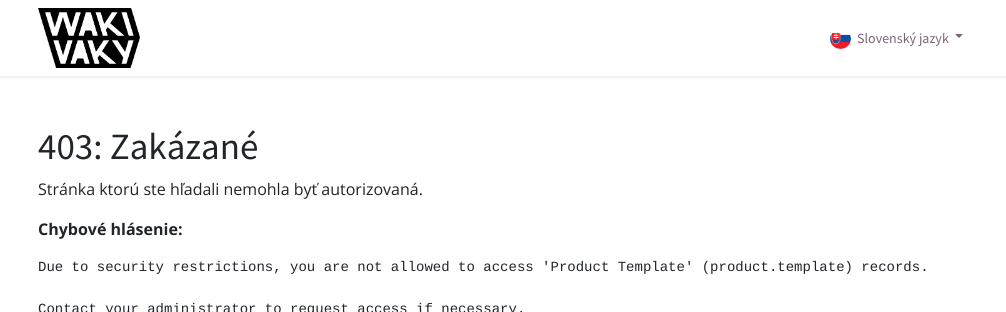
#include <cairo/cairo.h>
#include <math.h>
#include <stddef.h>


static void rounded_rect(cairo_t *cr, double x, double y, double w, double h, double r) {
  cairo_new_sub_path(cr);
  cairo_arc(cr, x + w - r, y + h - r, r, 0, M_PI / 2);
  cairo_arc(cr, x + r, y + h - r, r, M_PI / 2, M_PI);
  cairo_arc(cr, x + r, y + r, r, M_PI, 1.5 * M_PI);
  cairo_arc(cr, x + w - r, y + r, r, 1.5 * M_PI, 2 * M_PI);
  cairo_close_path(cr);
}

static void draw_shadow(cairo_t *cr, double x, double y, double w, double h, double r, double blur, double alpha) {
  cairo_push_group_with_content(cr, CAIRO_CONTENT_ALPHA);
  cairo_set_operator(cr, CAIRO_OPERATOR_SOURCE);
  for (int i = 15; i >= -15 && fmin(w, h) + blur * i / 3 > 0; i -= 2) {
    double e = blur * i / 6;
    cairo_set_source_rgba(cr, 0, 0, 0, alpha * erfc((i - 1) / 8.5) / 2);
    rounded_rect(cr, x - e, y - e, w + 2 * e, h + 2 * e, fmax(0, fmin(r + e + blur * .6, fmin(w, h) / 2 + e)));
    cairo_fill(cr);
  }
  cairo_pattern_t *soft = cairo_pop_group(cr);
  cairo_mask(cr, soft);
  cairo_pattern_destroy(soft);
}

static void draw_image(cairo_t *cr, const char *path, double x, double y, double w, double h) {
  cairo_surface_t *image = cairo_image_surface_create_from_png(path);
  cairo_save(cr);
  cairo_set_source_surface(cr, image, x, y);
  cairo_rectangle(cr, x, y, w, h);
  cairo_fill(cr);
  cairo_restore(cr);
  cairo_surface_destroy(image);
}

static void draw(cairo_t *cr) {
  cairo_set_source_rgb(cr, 1, 1, 1);
  cairo_paint(cr);
  cairo_save(cr);
  cairo_rectangle(cr, 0, 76, 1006, 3);
  cairo_clip(cr);
  cairo_set_source_rgb(cr, 0, 0, 0);
  draw_shadow(cr, 0, 2, 1006, 76, 0, 2, 0.07);
  cairo_restore(cr);
  draw_image(cr, "images/1.png", 38, 8, 102, 60);
  draw_image(cr, "images/2.png", 830, 32, 21, 17);
  cairo_set_source_rgb(cr, 124 / 255.0, 101 / 255.0, 118 / 255.0);
  cairo_new_path(cr);
  cairo_move_to(cr, 955, 34);
  cairo_line_to(cr, 963, 34);
  cairo_line_to(cr, 959, 38);
  cairo_close_path(cr);
  cairo_fill(cr);
  cairo_select_font_face(cr, "Source Sans Pro", CAIRO_FONT_SLANT_NORMAL, CAIRO_FONT_WEIGHT_NORMAL);
  cairo_set_font_size(cr, 14);
  cairo_move_to(cr, 857, 43);
  cairo_show_text(cr, "Slovenský jazyk");
  cairo_set_font_size(cr, 37);
  cairo_set_source_rgb(cr, 33 / 255.0, 37 / 255.0, 41 / 255.0);
  cairo_move_to(cr, 38, 159);
  cairo_show_text(cr, "403: Zakázané");
  cairo_select_font_face(cr, "Open Sans", CAIRO_FONT_SLANT_NORMAL, CAIRO_FONT_WEIGHT_NORMAL);
  cairo_set_font_size(cr, 16);
  cairo_move_to(cr, 38, 195);
  cairo_show_text(cr, "Stránka ktorú ste hľadali nemohla byť autorizovaná.");
  cairo_select_font_face(cr, "Open Sans", CAIRO_FONT_SLANT_NORMAL, CAIRO_FONT_WEIGHT_BOLD);
  cairo_move_to(cr, 38, 235);
  cairo_show_text(cr, "Chybové hlásenie:");
  cairo_select_font_face(cr, "Liberation Mono", CAIRO_FONT_SLANT_NORMAL, CAIRO_FONT_WEIGHT_NORMAL);
  cairo_set_font_size(cr, 14);
  cairo_move_to(cr, 38, 271);
  cairo_show_text(cr, "Due to security restrictions, you are not allowed to access 'Product Template' (product.template) records.");
  cairo_move_to(cr, 38, 313);
  cairo_show_text(cr, "Contact your administrator to request access if necessary.");
}

int main(void) {
  cairo_surface_t *surface = cairo_image_surface_create(CAIRO_FORMAT_RGB24, 1006, 312);
  cairo_t *cr = cairo_create(surface);
  cairo_font_options_t *options = cairo_font_options_create();
  cairo_font_options_set_hint_metrics(options, CAIRO_HINT_METRICS_OFF);
  cairo_font_options_set_hint_style(options, CAIRO_HINT_STYLE_NONE);
  cairo_set_font_options(cr, options);
  cairo_set_miter_limit(cr, 4);
  draw(cr);
  cairo_surface_write_to_png(surface, "out.png");
  cairo_font_options_destroy(options);
  cairo_destroy(cr);
  cairo_surface_destroy(surface);
  return 0;
}
